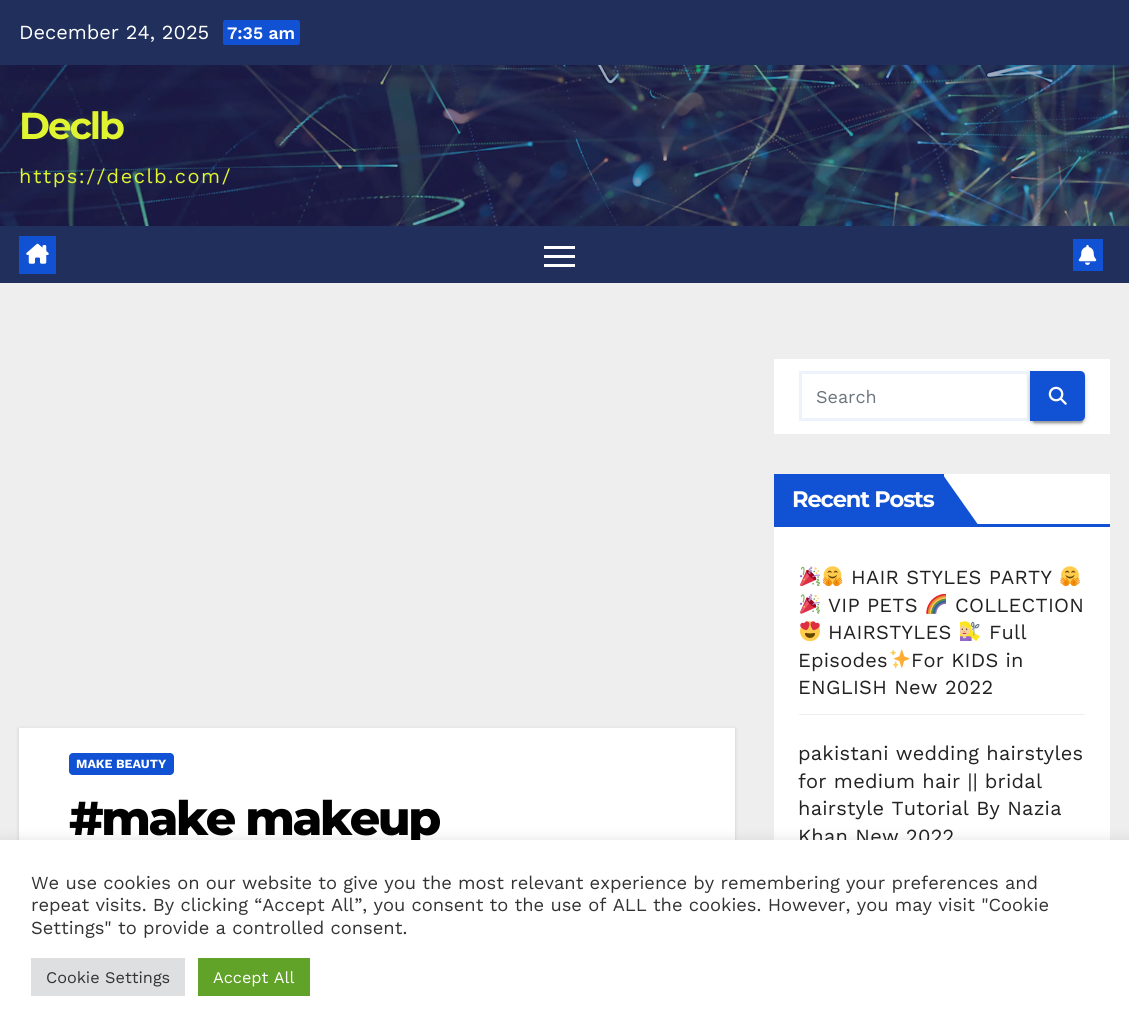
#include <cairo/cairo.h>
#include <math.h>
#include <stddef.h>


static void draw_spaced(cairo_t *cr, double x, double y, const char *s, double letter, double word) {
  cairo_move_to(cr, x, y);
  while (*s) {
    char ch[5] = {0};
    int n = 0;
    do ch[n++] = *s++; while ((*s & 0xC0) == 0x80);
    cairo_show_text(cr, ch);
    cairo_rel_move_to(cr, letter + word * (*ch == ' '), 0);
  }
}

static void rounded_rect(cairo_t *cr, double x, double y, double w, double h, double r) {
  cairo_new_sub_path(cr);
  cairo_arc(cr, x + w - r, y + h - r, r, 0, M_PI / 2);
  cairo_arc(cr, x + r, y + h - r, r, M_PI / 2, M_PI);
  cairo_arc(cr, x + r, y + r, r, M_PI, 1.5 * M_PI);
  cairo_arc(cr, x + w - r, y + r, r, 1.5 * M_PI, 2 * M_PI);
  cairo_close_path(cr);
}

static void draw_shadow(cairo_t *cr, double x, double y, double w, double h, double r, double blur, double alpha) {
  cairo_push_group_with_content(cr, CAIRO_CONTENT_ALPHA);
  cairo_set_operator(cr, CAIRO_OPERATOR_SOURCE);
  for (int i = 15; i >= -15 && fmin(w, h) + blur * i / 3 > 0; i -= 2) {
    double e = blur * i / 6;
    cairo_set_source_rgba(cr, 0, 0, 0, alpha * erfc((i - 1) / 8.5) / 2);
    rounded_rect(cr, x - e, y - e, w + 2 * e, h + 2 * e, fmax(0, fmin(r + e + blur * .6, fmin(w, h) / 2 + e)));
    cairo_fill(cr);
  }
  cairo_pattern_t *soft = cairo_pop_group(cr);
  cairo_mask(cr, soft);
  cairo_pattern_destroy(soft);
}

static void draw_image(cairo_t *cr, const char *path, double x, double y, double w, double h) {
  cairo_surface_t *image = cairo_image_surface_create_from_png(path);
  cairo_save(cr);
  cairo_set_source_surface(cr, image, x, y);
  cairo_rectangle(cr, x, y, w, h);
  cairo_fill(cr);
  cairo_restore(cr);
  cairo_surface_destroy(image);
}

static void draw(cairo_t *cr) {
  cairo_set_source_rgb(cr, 238 / 255.0, 238 / 255.0, 238 / 255.0);
  cairo_paint(cr);
  cairo_set_source_rgb(cr, 32 / 255.0, 47 / 255.0, 91 / 255.0);
  cairo_rectangle(cr, 0, 0, 1129, 65);
  cairo_fill(cr);
  cairo_set_source_rgb(cr, 17 / 255.0, 81 / 255.0, 211 / 255.0);
  rounded_rect(cr, 223, 20, 77, 25, 2.5);
  cairo_fill(cr);
  draw_image(cr, "images/1.png", 0, 65, 1129, 161);
  cairo_set_source_rgb(cr, 32 / 255.0, 47 / 255.0, 91 / 255.0);
  cairo_rectangle(cr, 0, 226, 1129, 57);
  cairo_fill(cr);
  cairo_set_source_rgb(cr, 17 / 255.0, 81 / 255.0, 211 / 255.0);
  cairo_rectangle(cr, 19, 236, 37, 38);
  cairo_fill(cr);
  draw_image(cr, "images/2.png", 26, 243, 23, 21);
  cairo_set_source_rgb(cr, 1, 1, 1);
  cairo_rectangle(cr, 544, 246, 31, 3);
  cairo_fill(cr);
  cairo_rectangle(cr, 544, 255, 31, 3);
  cairo_fill(cr);
  cairo_rectangle(cr, 544, 264, 31, 3);
  cairo_fill(cr);
  cairo_set_source_rgb(cr, 17 / 255.0, 81 / 255.0, 211 / 255.0);
  cairo_rectangle(cr, 1073, 239, 30, 32);
  cairo_fill(cr);
  draw_image(cr, "images/3.png", 1078, 245, 19, 20);
  cairo_set_source_rgb(cr, 0, 0, 0);
  draw_shadow(cr, 19, 729, 716, 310, 0, 2, 0.15);
  cairo_set_source_rgb(cr, 1, 1, 1);
  cairo_rectangle(cr, 19, 728, 716, 112);
  cairo_fill(cr);
  cairo_set_source_rgb(cr, 17 / 255.0, 81 / 255.0, 211 / 255.0);
  rounded_rect(cr, 69, 753, 105, 22, 4);
  cairo_fill(cr);
  cairo_set_source_rgb(cr, 1, 1, 1);
  cairo_rectangle(cr, 774, 359, 336, 75);
  cairo_fill(cr);
  cairo_rectangle(cr, 800.5, 372.5, 228, 47);
  cairo_set_source_rgb(cr, 238 / 255.0, 243 / 255.0, 251 / 255.0);
  cairo_set_line_width(cr, 3);
  cairo_stroke(cr);
  cairo_set_source_rgb(cr, 0, 0, 0);
  draw_shadow(cr, 1030, 373, 55, 50, 5, 3, 0.12);
  draw_shadow(cr, 1033, 378, 50, 45, 2.5, 0.5, 0.2);
  draw_shadow(cr, 1030, 374, 55, 50, 5, 1, 0.14);
  cairo_set_source_rgb(cr, 17 / 255.0, 81 / 255.0, 211 / 255.0);
  cairo_new_path(cr);
  cairo_move_to(cr, 1030, 371);
  cairo_line_to(cr, 1080, 371);
  cairo_curve_to(cr, 1083, 371, 1085, 373, 1085, 376);
  cairo_line_to(cr, 1085, 416);
  cairo_curve_to(cr, 1085, 419, 1083, 421, 1080, 421);
  cairo_line_to(cr, 1030, 421);
  cairo_close_path(cr);
  cairo_fill(cr);
  draw_image(cr, "images/4.png", 1048, 386, 19, 19);
  cairo_set_source_rgb(cr, 1, 1, 1);
  cairo_rectangle(cr, 774, 474, 336, 366);
  cairo_fill(cr);
  cairo_set_source_rgb(cr, 17 / 255.0, 81 / 255.0, 211 / 255.0);
  cairo_rectangle(cr, 774, 524, 336, 3);
  cairo_fill(cr);
  cairo_rectangle(cr, 774, 474, 170, 50);
  cairo_fill(cr);
  cairo_new_path(cr);
  cairo_move_to(cr, 979, 526);
  cairo_line_to(cr, 943, 526);
  cairo_line_to(cr, 943, 475);
  cairo_close_path(cr);
  cairo_fill(cr);
  cairo_new_path(cr);
  cairo_move_to(cr, 942, 474);
  cairo_line_to(cr, 946, 480);
  cairo_line_to(cr, 946, 522);
  cairo_line_to(cr, 942, 526);
  cairo_close_path(cr);
  cairo_fill(cr);
  cairo_set_source_rgb(cr, 238 / 255.0, 238 / 255.0, 238 / 255.0);
  cairo_rectangle(cr, 799, 714, 286, 1);
  cairo_fill(cr);
  draw_image(cr, "images/5.png", 800, 566, 20, 20);
  draw_image(cr, "images/6.png", 823, 566, 20, 20);
  draw_image(cr, "images/7.png", 1060, 566, 20, 20);
  draw_image(cr, "images/8.png", 800, 594, 20, 20);
  draw_image(cr, "images/9.png", 926, 594, 20, 20);
  draw_image(cr, "images/10.png", 800, 621, 20, 20);
  draw_image(cr, "images/11.png", 960, 621, 20, 20);
  draw_image(cr, "images/12.png", 890, 649, 20, 20);
  cairo_set_source_rgb(cr, 172 / 255.0, 171 / 255.0, 171 / 255.0);
  draw_shadow(cr, 0, 839, 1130, 194, 0, 6, 0.3);
  cairo_select_font_face(cr, "Work Sans", CAIRO_FONT_SLANT_NORMAL, CAIRO_FONT_WEIGHT_NORMAL);
  cairo_set_font_size(cr, 20);
  cairo_set_source_rgb(cr, 1, 1, 1);
  cairo_move_to(cr, 19, 39);
  cairo_show_text(cr, "December 24, 2025");
  cairo_select_font_face(cr, "Work Sans SemiBold", CAIRO_FONT_SLANT_NORMAL, CAIRO_FONT_WEIGHT_NORMAL);
  cairo_set_font_size(cr, 17.5);
  cairo_move_to(cr, 227, 39);
  cairo_show_text(cr, "7:35 am");
  cairo_select_font_face(cr, "Montserrat", CAIRO_FONT_SLANT_NORMAL, CAIRO_FONT_WEIGHT_BOLD);
  cairo_set_font_size(cr, 37.5);
  cairo_set_source_rgb(cr, 225 / 255.0, 244 / 255.0, 48 / 255.0);
  draw_spaced(cr, 19, 139, "Declb", -2, 0);
  cairo_select_font_face(cr, "Work Sans", CAIRO_FONT_SLANT_NORMAL, CAIRO_FONT_WEIGHT_NORMAL);
  cairo_set_font_size(cr, 20);
  draw_spaced(cr, 19, 183, "https://declb.com/", 1.5, 0);
  cairo_select_font_face(cr, "Work Sans", CAIRO_FONT_SLANT_NORMAL, CAIRO_FONT_WEIGHT_BOLD);
  cairo_set_font_size(cr, 12.5);
  cairo_set_source_rgb(cr, 1, 1, 1);
  cairo_move_to(cr, 76, 768);
  cairo_show_text(cr, "MAKE BEAUTY");
  cairo_select_font_face(cr, "Montserrat ExtraBold", CAIRO_FONT_SLANT_NORMAL, CAIRO_FONT_WEIGHT_NORMAL);
  cairo_set_font_size(cr, 47.5);
  cairo_set_source_rgb(cr, 0, 0, 0);
  draw_spaced(cr, 69, 835, "#make makeup", -2.4, 0);
  cairo_select_font_face(cr, "Work Sans", CAIRO_FONT_SLANT_NORMAL, CAIRO_FONT_WEIGHT_NORMAL);
  cairo_set_font_size(cr, 18);
  cairo_set_source_rgb(cr, 108 / 255.0, 117 / 255.0, 125 / 255.0);
  cairo_move_to(cr, 816, 403);
  cairo_show_text(cr, "Search");
  cairo_select_font_face(cr, "Montserrat", CAIRO_FONT_SLANT_NORMAL, CAIRO_FONT_WEIGHT_BOLD);
  cairo_set_font_size(cr, 22.5);
  cairo_set_source_rgb(cr, 1, 1, 1);
  draw_spaced(cr, 792, 507, "Recent Posts", -1.1, 0);
  cairo_select_font_face(cr, "Work Sans", CAIRO_FONT_SLANT_NORMAL, CAIRO_FONT_WEIGHT_NORMAL);
  cairo_set_font_size(cr, 20);
  cairo_set_source_rgb(cr, 34 / 255.0, 34 / 255.0, 34 / 255.0);
  draw_spaced(cr, 851, 584, "HAIR STYLES PARTY", 0.25, 0);
  draw_spaced(cr, 828, 612, "VIP PETS", 0.25, 0);
  draw_spaced(cr, 955, 612, "COLLECTION", 0.25, 0);
  draw_spaced(cr, 828, 639, "HAIRSTYLES", 0.25, 0);
  draw_spaced(cr, 989, 639, "Full", 0.25, 0);
  draw_spaced(cr, 798, 667, "Episodes", 0.25, 0);
  draw_spaced(cr, 911, 667, "For KIDS in", 0.25, 0);
  draw_spaced(cr, 798, 694, "ENGLISH New 2022", 0.25, 0);
  draw_spaced(cr, 798, 760, "pakistani wedding hairstyles", 0.25, 0);
  draw_spaced(cr, 798, 788, "for medium hair || bridal", 0.25, 0);
  draw_spaced(cr, 798, 815, "hairstyle Tutorial By Nazia", 0.25, 0);
  draw_spaced(cr, 798, 843, "Khan New 2022", 0.25, 0);
  cairo_set_source_rgb(cr, 1, 1, 1);
  cairo_rectangle(cr, 0, 840, 1129, 193);
  cairo_fill(cr);
  cairo_set_font_size(cr, 18.33);
  cairo_set_source_rgb(cr, 51 / 255.0, 51 / 255.0, 51 / 255.0);
  cairo_move_to(cr, 31, 889);
  cairo_show_text(cr, "We use cookies on our website to give you the most relevant experience by remembering your preferences and");
  cairo_move_to(cr, 31, 911);
  cairo_show_text(cr, "repeat visits. By clicking “Accept All”, you consent to the use of ALL the cookies. However, you may visit \"Cookie");
  cairo_move_to(cr, 31, 934);
  cairo_show_text(cr, "Settings\" to provide a controlled consent.");
  cairo_set_source_rgb(cr, 222 / 255.0, 223 / 255.0, 224 / 255.0);
  cairo_rectangle(cr, 31, 958, 154, 38);
  cairo_fill(cr);
  cairo_set_font_size(cr, 16.25);
  cairo_set_source_rgb(cr, 51 / 255.0, 51 / 255.0, 51 / 255.0);
  cairo_move_to(cr, 46, 983);
  cairo_show_text(cr, "Cookie Settings");
  cairo_set_source_rgb(cr, 97 / 255.0, 162 / 255.0, 41 / 255.0);
  cairo_rectangle(cr, 198, 958, 112, 38);
  cairo_fill(cr);
  cairo_set_source_rgb(cr, 1, 1, 1);
  cairo_move_to(cr, 213, 983);
  cairo_show_text(cr, "Accept All");
}

int main(void) {
  cairo_surface_t *surface = cairo_image_surface_create(CAIRO_FORMAT_RGB24, 1129, 1033);
  cairo_t *cr = cairo_create(surface);
  cairo_font_options_t *options = cairo_font_options_create();
  cairo_font_options_set_hint_metrics(options, CAIRO_HINT_METRICS_OFF);
  cairo_font_options_set_hint_style(options, CAIRO_HINT_STYLE_NONE);
  cairo_set_font_options(cr, options);
  cairo_set_miter_limit(cr, 4);
  draw(cr);
  cairo_surface_write_to_png(surface, "out.png");
  cairo_font_options_destroy(options);
  cairo_destroy(cr);
  cairo_surface_destroy(surface);
  return 0;
}
